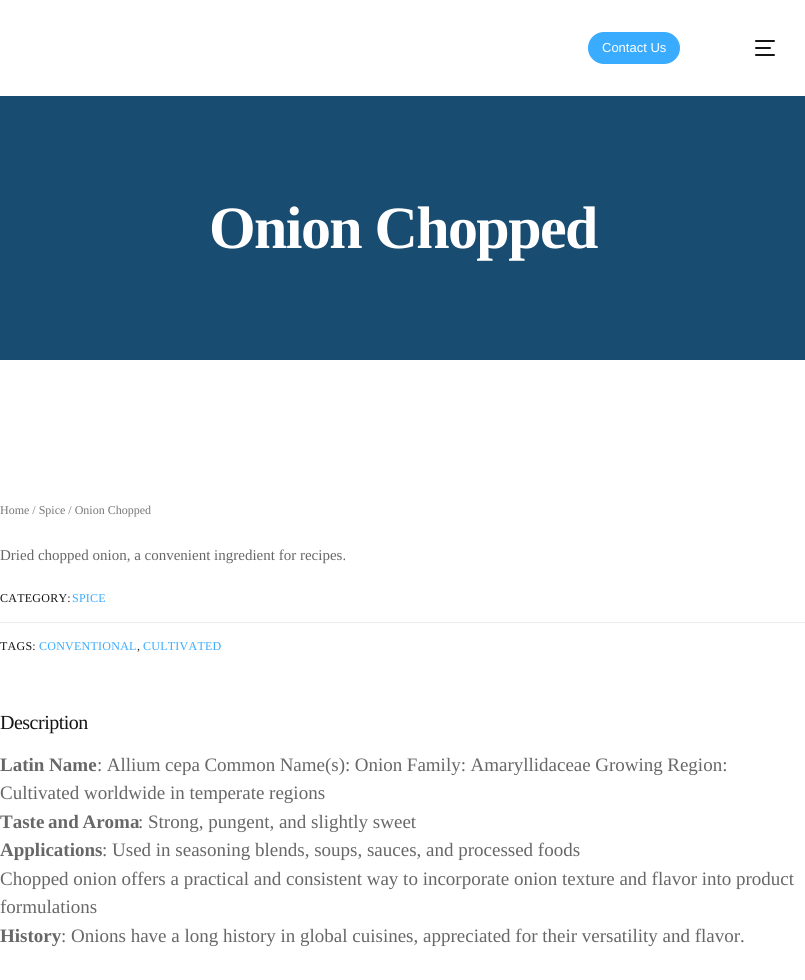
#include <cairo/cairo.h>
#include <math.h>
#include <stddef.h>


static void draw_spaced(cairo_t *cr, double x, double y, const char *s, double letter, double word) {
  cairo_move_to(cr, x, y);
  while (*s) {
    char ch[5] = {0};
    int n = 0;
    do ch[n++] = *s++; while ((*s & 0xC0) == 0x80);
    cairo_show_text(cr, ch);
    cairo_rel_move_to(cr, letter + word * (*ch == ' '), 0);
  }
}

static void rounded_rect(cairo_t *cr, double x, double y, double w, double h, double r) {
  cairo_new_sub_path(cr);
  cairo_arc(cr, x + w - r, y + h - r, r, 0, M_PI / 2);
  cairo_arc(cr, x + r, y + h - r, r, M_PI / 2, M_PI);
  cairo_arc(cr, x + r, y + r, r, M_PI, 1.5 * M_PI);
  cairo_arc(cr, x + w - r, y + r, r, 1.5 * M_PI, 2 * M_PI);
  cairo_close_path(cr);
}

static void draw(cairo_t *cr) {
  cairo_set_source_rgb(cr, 1, 1, 1);
  cairo_paint(cr);
  cairo_set_source_rgb(cr, 57 / 255.0, 172 / 255.0, 1);
  rounded_rect(cr, 588, 32, 92, 32, 16);
  cairo_fill(cr);
  cairo_set_source_rgb(cr, 20 / 255.0, 20 / 255.0, 20 / 255.0);
  rounded_rect(cr, 755, 40, 20, 2, 1);
  cairo_fill(cr);
  rounded_rect(cr, 755, 47, 16, 2, 1);
  cairo_fill(cr);
  rounded_rect(cr, 755, 54, 20, 2, 1);
  cairo_fill(cr);
  cairo_set_source_rgb(cr, 25 / 255.0, 76 / 255.0, 113 / 255.0);
  cairo_rectangle(cr, 0, 96, 805, 264);
  cairo_fill(cr);
  cairo_set_source_rgb(cr, 235 / 255.0, 235 / 255.0, 235 / 255.0);
  cairo_rectangle(cr, 0, 622, 805, 1);
  cairo_fill(cr);
  cairo_select_font_face(cr, "Liberation Sans", CAIRO_FONT_SLANT_NORMAL, CAIRO_FONT_WEIGHT_NORMAL);
  cairo_set_font_size(cr, 13);
  cairo_set_source_rgb(cr, 1, 1, 1);
  cairo_move_to(cr, 602, 52);
  cairo_show_text(cr, "Contact Us");
  cairo_select_font_face(cr, "Liberation Serif", CAIRO_FONT_SLANT_NORMAL, CAIRO_FONT_WEIGHT_BOLD);
  cairo_set_font_size(cr, 60);
  draw_spaced(cr, 209, 248, "Onion Chopped", -1.6, 0);
  cairo_select_font_face(cr, "Liberation Serif", CAIRO_FONT_SLANT_NORMAL, CAIRO_FONT_WEIGHT_NORMAL);
  cairo_set_font_size(cr, 12);
  cairo_set_source_rgb(cr, 118 / 255.0, 118 / 255.0, 118 / 255.0);
  cairo_move_to(cr, 0, 514);
  cairo_show_text(cr, "Home / Spice / Onion Chopped");
  cairo_set_font_size(cr, 15);
  cairo_set_source_rgb(cr, 103 / 255.0, 103 / 255.0, 103 / 255.0);
  cairo_move_to(cr, 0, 560);
  cairo_show_text(cr, "Dried chopped onion, a convenient ingredient for recipes.");
  cairo_set_font_size(cr, 12);
  cairo_set_source_rgb(cr, 20 / 255.0, 20 / 255.0, 20 / 255.0);
  draw_spaced(cr, 0, 602, "CATEGORY:", 0.25, 0);
  cairo_set_source_rgb(cr, 57 / 255.0, 172 / 255.0, 1);
  draw_spaced(cr, 72, 602, "SPICE", 0.25, 0);
  cairo_set_source_rgb(cr, 20 / 255.0, 20 / 255.0, 20 / 255.0);
  draw_spaced(cr, 0, 650, "TAGS:", 0.25, 0);
  cairo_set_source_rgb(cr, 57 / 255.0, 172 / 255.0, 1);
  draw_spaced(cr, 39, 650, "CONVENTIONAL", 0.25, 0);
  cairo_set_source_rgb(cr, 20 / 255.0, 20 / 255.0, 20 / 255.0);
  draw_spaced(cr, 137, 650, ",", 0.25, 0);
  cairo_set_source_rgb(cr, 57 / 255.0, 172 / 255.0, 1);
  draw_spaced(cr, 143, 650, "CULTIVATED", 0.25, 0);
  cairo_set_font_size(cr, 20);
  cairo_set_source_rgb(cr, 20 / 255.0, 20 / 255.0, 20 / 255.0);
  draw_spaced(cr, 0, 729, "Description", -0.5, 0);
  cairo_select_font_face(cr, "Liberation Serif", CAIRO_FONT_SLANT_NORMAL, CAIRO_FONT_WEIGHT_BOLD);
  cairo_set_font_size(cr, 19);
  cairo_set_source_rgb(cr, 103 / 255.0, 103 / 255.0, 103 / 255.0);
  cairo_move_to(cr, 0, 771);
  cairo_show_text(cr, "Latin Name");
  cairo_select_font_face(cr, "Liberation Serif", CAIRO_FONT_SLANT_NORMAL, CAIRO_FONT_WEIGHT_NORMAL);
  draw_spaced(cr, 97, 771, ": Allium cepa Common Name(s): Onion Family: Amaryllidaceae Growing Region:", 0, -0.25);
  cairo_move_to(cr, 0, 799);
  cairo_show_text(cr, "Cultivated worldwide in temperate regions");
  cairo_select_font_face(cr, "Liberation Serif", CAIRO_FONT_SLANT_NORMAL, CAIRO_FONT_WEIGHT_BOLD);
  draw_spaced(cr, 0, 828, "Taste and Aroma", 0, -1);
  cairo_select_font_face(cr, "Liberation Serif", CAIRO_FONT_SLANT_NORMAL, CAIRO_FONT_WEIGHT_NORMAL);
  cairo_move_to(cr, 138, 828);
  cairo_show_text(cr, ": Strong, pungent, and slightly sweet");
  cairo_select_font_face(cr, "Liberation Serif", CAIRO_FONT_SLANT_NORMAL, CAIRO_FONT_WEIGHT_BOLD);
  cairo_move_to(cr, 0, 856);
  cairo_show_text(cr, "Applications");
  cairo_select_font_face(cr, "Liberation Serif", CAIRO_FONT_SLANT_NORMAL, CAIRO_FONT_WEIGHT_NORMAL);
  cairo_move_to(cr, 102, 856);
  cairo_show_text(cr, ": Used in seasoning blends, soups, sauces, and processed foods");
  cairo_move_to(cr, 0, 885);
  cairo_show_text(cr, "Chopped onion offers a practical and consistent way to incorporate onion texture and flavor into product");
  cairo_move_to(cr, 0, 913);
  cairo_show_text(cr, "formulations");
  cairo_select_font_face(cr, "Liberation Serif", CAIRO_FONT_SLANT_NORMAL, CAIRO_FONT_WEIGHT_BOLD);
  cairo_move_to(cr, 0, 942);
  cairo_show_text(cr, "History");
  cairo_select_font_face(cr, "Liberation Serif", CAIRO_FONT_SLANT_NORMAL, CAIRO_FONT_WEIGHT_NORMAL);
  cairo_move_to(cr, 61, 942);
  cairo_show_text(cr, ": Onions have a long history in global cuisines, appreciated for their versatility and flavor.");
}

int main(void) {
  cairo_surface_t *surface = cairo_image_surface_create(CAIRO_FORMAT_RGB24, 805, 980);
  cairo_t *cr = cairo_create(surface);
  cairo_font_options_t *options = cairo_font_options_create();
  cairo_font_options_set_hint_metrics(options, CAIRO_HINT_METRICS_OFF);
  cairo_font_options_set_hint_style(options, CAIRO_HINT_STYLE_NONE);
  cairo_set_font_options(cr, options);
  cairo_set_miter_limit(cr, 4);
  draw(cr);
  cairo_surface_write_to_png(surface, "out.png");
  cairo_font_options_destroy(options);
  cairo_destroy(cr);
  cairo_surface_destroy(surface);
  return 0;
}
